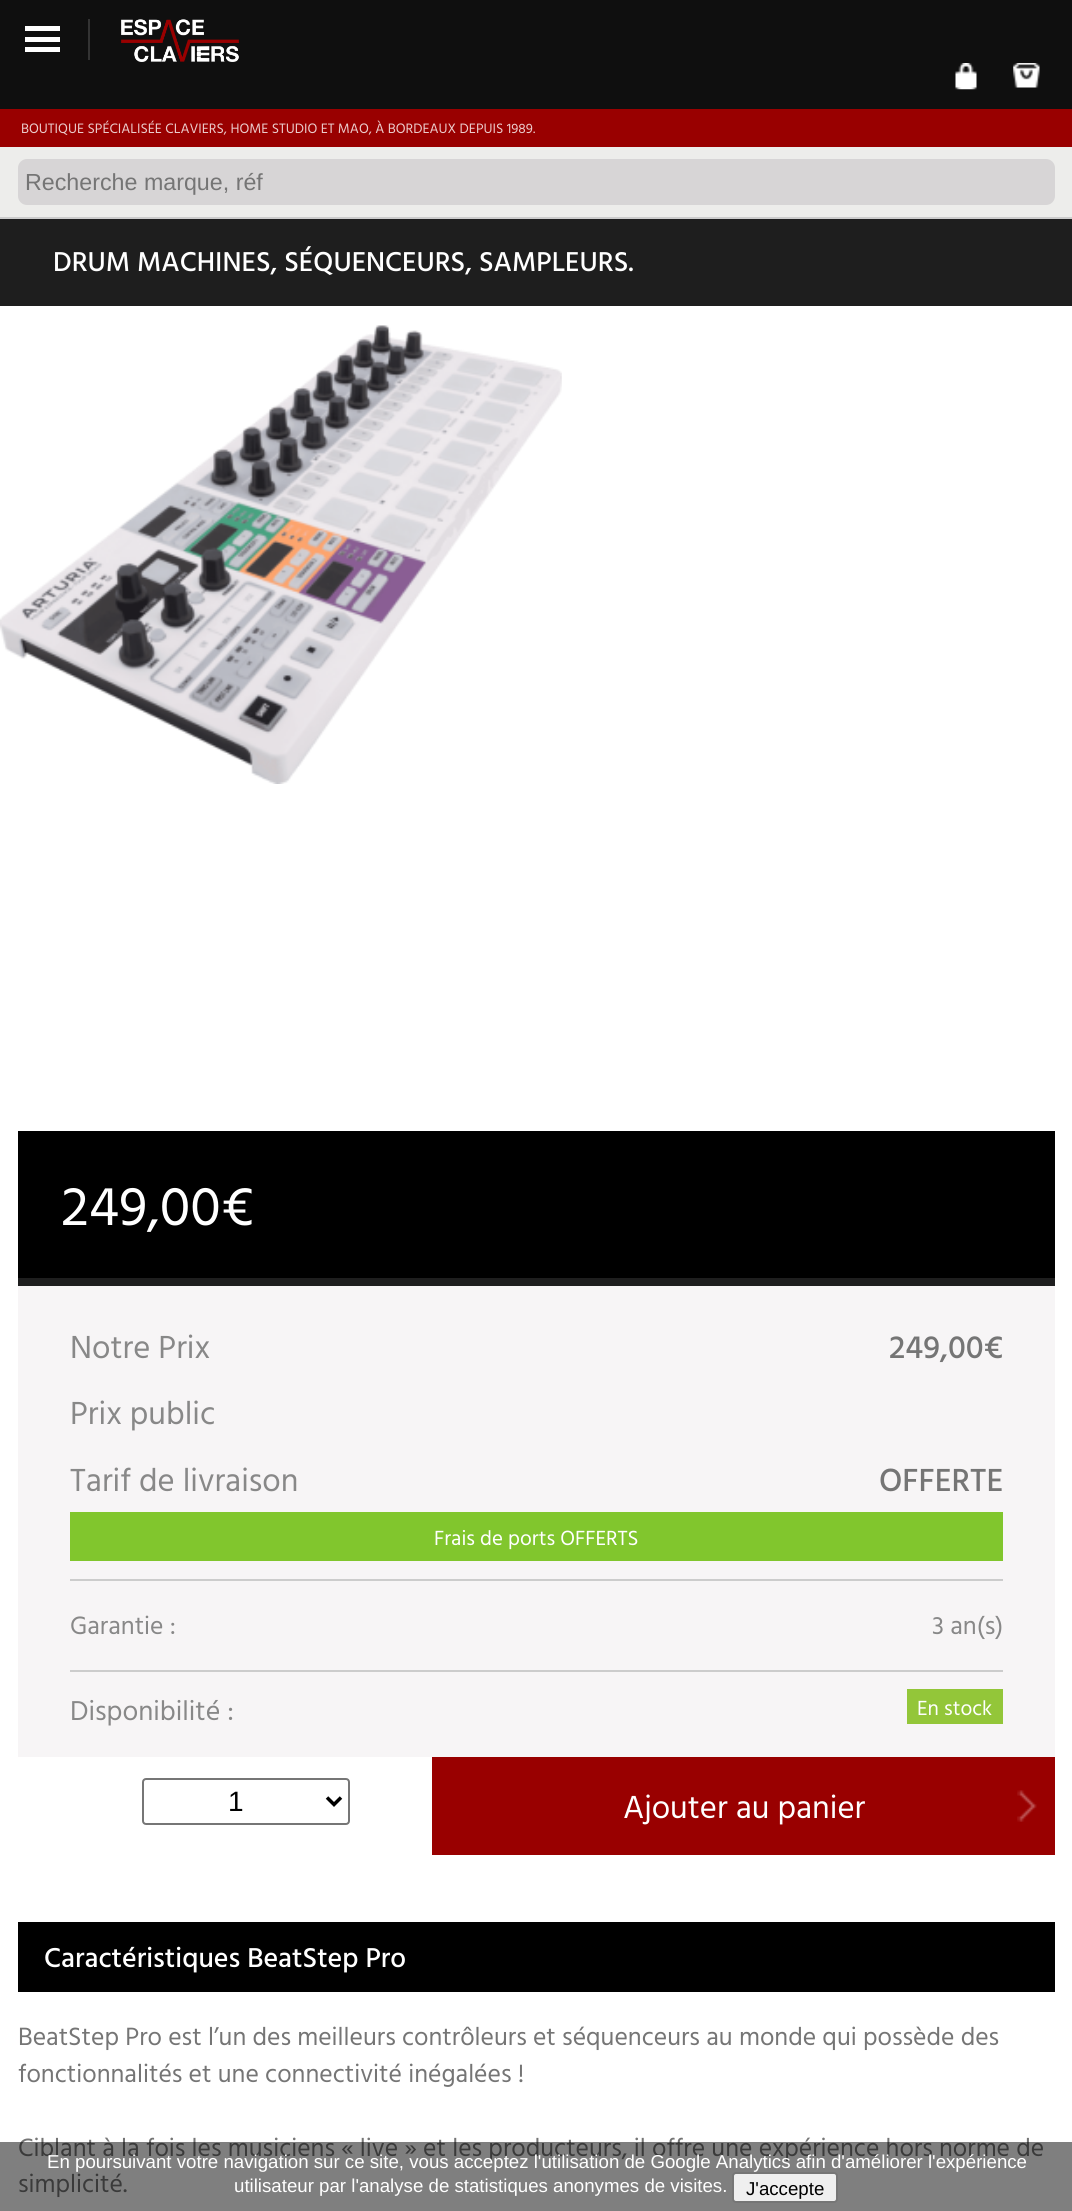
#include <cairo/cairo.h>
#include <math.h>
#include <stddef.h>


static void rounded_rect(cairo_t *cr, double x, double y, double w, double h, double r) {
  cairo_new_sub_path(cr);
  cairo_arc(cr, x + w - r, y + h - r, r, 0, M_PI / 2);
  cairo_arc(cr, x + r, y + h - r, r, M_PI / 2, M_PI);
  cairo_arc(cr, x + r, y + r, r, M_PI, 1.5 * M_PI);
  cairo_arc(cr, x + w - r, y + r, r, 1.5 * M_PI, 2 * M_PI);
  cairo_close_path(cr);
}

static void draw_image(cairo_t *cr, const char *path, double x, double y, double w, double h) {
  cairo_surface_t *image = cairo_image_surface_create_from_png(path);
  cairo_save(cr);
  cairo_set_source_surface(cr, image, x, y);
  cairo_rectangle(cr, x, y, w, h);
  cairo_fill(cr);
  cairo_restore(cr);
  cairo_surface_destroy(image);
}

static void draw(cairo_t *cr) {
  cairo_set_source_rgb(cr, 15 / 255.0, 15 / 255.0, 15 / 255.0);
  cairo_paint(cr);
  cairo_set_source_rgb(cr, 1, 1, 1);
  cairo_rectangle(cr, 25, 37, 35, 5);
  cairo_fill(cr);
  cairo_rectangle(cr, 25, 26, 35, 5);
  cairo_fill(cr);
  cairo_rectangle(cr, 25, 47, 35, 5);
  cairo_fill(cr);
  cairo_set_source_rgb(cr, 51 / 255.0, 51 / 255.0, 51 / 255.0);
  cairo_rectangle(cr, 88, 19, 2, 41);
  cairo_fill(cr);
  draw_image(cr, "images/1.png", 121, 19, 118, 43);
  draw_image(cr, "images/2.png", 955, 63, 22, 27);
  draw_image(cr, "images/3.png", 1013, 63, 27, 25);
  cairo_set_source_rgb(cr, 153 / 255.0, 0, 0);
  cairo_rectangle(cr, 0, 109, 1072, 38);
  cairo_fill(cr);
  cairo_set_source_rgb(cr, 237 / 255.0, 237 / 255.0, 235 / 255.0);
  cairo_rectangle(cr, 0, 147, 1072, 70);
  cairo_fill(cr);
  cairo_set_source_rgb(cr, 215 / 255.0, 213 / 255.0, 214 / 255.0);
  rounded_rect(cr, 18, 159, 1037, 46, 9);
  cairo_fill(cr);
  cairo_set_source_rgb(cr, 204 / 255.0, 204 / 255.0, 204 / 255.0);
  cairo_rectangle(cr, 0, 217, 1072, 2);
  cairo_fill(cr);
  cairo_set_source_rgb(cr, 1, 1, 1);
  cairo_rectangle(cr, 0, 306, 1072, 1905);
  cairo_fill(cr);
  cairo_set_source_rgb(cr, 30 / 255.0, 30 / 255.0, 30 / 255.0);
  cairo_rectangle(cr, 0, 219, 1072, 87);
  cairo_fill(cr);
  draw_image(cr, "images/4.png", 0, 325, 562, 459);
  cairo_set_source_rgb(cr, 0, 0, 0);
  cairo_rectangle(cr, 18, 1131, 1037, 147);
  cairo_fill(cr);
  cairo_set_source_rgb(cr, 247 / 255.0, 245 / 255.0, 246 / 255.0);
  cairo_rectangle(cr, 18, 1286, 1037, 471);
  cairo_fill(cr);
  cairo_set_source_rgb(cr, 30 / 255.0, 30 / 255.0, 30 / 255.0);
  cairo_rectangle(cr, 18, 1278, 1037, 8);
  cairo_fill(cr);
  cairo_set_source_rgb(cr, 204 / 255.0, 204 / 255.0, 204 / 255.0);
  cairo_rectangle(cr, 70, 1579, 933, 2);
  cairo_fill(cr);
  cairo_set_source_rgb(cr, 129 / 255.0, 198 / 255.0, 45 / 255.0);
  cairo_rectangle(cr, 70, 1512, 933, 49);
  cairo_fill(cr);
  cairo_set_source_rgb(cr, 204 / 255.0, 204 / 255.0, 204 / 255.0);
  cairo_rectangle(cr, 70, 1670, 933, 2);
  cairo_fill(cr);
  cairo_set_source_rgb(cr, 147 / 255.0, 198 / 255.0, 57 / 255.0);
  cairo_rectangle(cr, 907, 1689, 96, 35);
  cairo_fill(cr);
  rounded_rect(cr, 143, 1779, 206, 45, 3);
  cairo_set_source_rgb(cr, 118 / 255.0, 118 / 255.0, 118 / 255.0);
  cairo_stroke(cr);
  cairo_new_path(cr);
  cairo_move_to(cr, 327, 1797.5);
  cairo_line_to(cr, 334, 1804.5);
  cairo_line_to(cr, 341, 1797.5);
  cairo_set_source_rgb(cr, 0, 0, 0);
  cairo_set_line_width(cr, 3.5);
  cairo_stroke(cr);
  cairo_set_source_rgb(cr, 153 / 255.0, 0, 0);
  cairo_rectangle(cr, 432, 1757, 623, 98);
  cairo_fill(cr);
  draw_image(cr, "images/5.png", 1017, 1790, 20, 32);
  cairo_set_source_rgb(cr, 0, 0, 0);
  cairo_rectangle(cr, 18, 1922, 1037, 70);
  cairo_fill(cr);
  cairo_select_font_face(cr, "Hind Vadodara", CAIRO_FONT_SLANT_NORMAL, CAIRO_FONT_WEIGHT_NORMAL);
  cairo_set_font_size(cr, 14);
  cairo_set_source_rgb(cr, 235 / 255.0, 204 / 255.0, 204 / 255.0);
  cairo_move_to(cr, 21, 133);
  cairo_show_text(cr, "BOUTIQUE SPÉCIALISÉE CLAVIERS, HOME STUDIO ET MAO, À BORDEAUX DEPUIS 1989.");
  cairo_select_font_face(cr, "Liberation Sans", CAIRO_FONT_SLANT_NORMAL, CAIRO_FONT_WEIGHT_NORMAL);
  cairo_set_font_size(cr, 23.25);
  cairo_set_source_rgb(cr, 117 / 255.0, 117 / 255.0, 117 / 255.0);
  cairo_move_to(cr, 25, 190);
  cairo_show_text(cr, "Recherche marque, réf");
  cairo_select_font_face(cr, "Hind Vadodara Medium", CAIRO_FONT_SLANT_NORMAL, CAIRO_FONT_WEIGHT_NORMAL);
  cairo_set_font_size(cr, 28);
  cairo_set_source_rgb(cr, 1, 1, 1);
  cairo_move_to(cr, 53, 271);
  cairo_show_text(cr, "DRUM MACHINES, SÉQUENCEURS, SAMPLEURS.");
  cairo_select_font_face(cr, "Hind Vadodara", CAIRO_FONT_SLANT_NORMAL, CAIRO_FONT_WEIGHT_NORMAL);
  cairo_set_font_size(cr, 56);
  cairo_move_to(cr, 61, 1225);
  cairo_show_text(cr, "249,00€");
  cairo_set_font_size(cr, 32.75);
  cairo_set_source_rgb(cr, 136 / 255.0, 136 / 255.0, 136 / 255.0);
  cairo_move_to(cr, 70, 1358);
  cairo_show_text(cr, "Notre Prix");
  cairo_select_font_face(cr, "Hind Vadodara Medium", CAIRO_FONT_SLANT_NORMAL, CAIRO_FONT_WEIGHT_NORMAL);
  cairo_set_source_rgb(cr, 117 / 255.0, 117 / 255.0, 117 / 255.0);
  cairo_move_to(cr, 889, 1358);
  cairo_show_text(cr, "249,00€");
  cairo_select_font_face(cr, "Hind Vadodara", CAIRO_FONT_SLANT_NORMAL, CAIRO_FONT_WEIGHT_NORMAL);
  cairo_set_source_rgb(cr, 136 / 255.0, 136 / 255.0, 136 / 255.0);
  cairo_move_to(cr, 70, 1424);
  cairo_show_text(cr, "Prix public");
  cairo_move_to(cr, 70, 1491);
  cairo_show_text(cr, "Tarif de livraison");
  cairo_select_font_face(cr, "Hind Vadodara Medium", CAIRO_FONT_SLANT_NORMAL, CAIRO_FONT_WEIGHT_NORMAL);
  cairo_set_source_rgb(cr, 117 / 255.0, 117 / 255.0, 117 / 255.0);
  cairo_move_to(cr, 879, 1491);
  cairo_show_text(cr, "OFFERTE");
  cairo_select_font_face(cr, "Hind Vadodara", CAIRO_FONT_SLANT_NORMAL, CAIRO_FONT_WEIGHT_NORMAL);
  cairo_set_font_size(cr, 21);
  cairo_set_source_rgb(cr, 1, 1, 1);
  cairo_move_to(cr, 434, 1545);
  cairo_show_text(cr, "Frais de ports OFFERTS");
  cairo_set_font_size(cr, 25.65);
  cairo_set_source_rgb(cr, 136 / 255.0, 136 / 255.0, 136 / 255.0);
  cairo_move_to(cr, 70, 1634);
  cairo_show_text(cr, "Garantie :");
  cairo_move_to(cr, 932, 1634);
  cairo_show_text(cr, "3 an(s)");
  cairo_set_font_size(cr, 28);
  cairo_move_to(cr, 70, 1720);
  cairo_show_text(cr, "Disponibilité :");
  cairo_set_font_size(cr, 21);
  cairo_set_source_rgb(cr, 1, 1, 1);
  cairo_move_to(cr, 917, 1715);
  cairo_show_text(cr, "En stock");
  cairo_select_font_face(cr, "Liberation Sans", CAIRO_FONT_SLANT_NORMAL, CAIRO_FONT_WEIGHT_NORMAL);
  cairo_set_font_size(cr, 28);
  cairo_set_source_rgb(cr, 0, 0, 0);
  cairo_move_to(cr, 228, 1811);
  cairo_show_text(cr, "1");
  cairo_select_font_face(cr, "Hind Vadodara", CAIRO_FONT_SLANT_NORMAL, CAIRO_FONT_WEIGHT_NORMAL);
  cairo_set_font_size(cr, 32.75);
  cairo_set_source_rgb(cr, 1, 1, 1);
  cairo_move_to(cr, 623, 1818);
  cairo_show_text(cr, "Ajouter au panier");
  cairo_select_font_face(cr, "Hind Vadodara Medium", CAIRO_FONT_SLANT_NORMAL, CAIRO_FONT_WEIGHT_NORMAL);
  cairo_set_font_size(cr, 28);
  cairo_move_to(cr, 44, 1967);
  cairo_show_text(cr, "Caractéristiques BeatStep Pro");
  cairo_select_font_face(cr, "Hind Vadodara", CAIRO_FONT_SLANT_NORMAL, CAIRO_FONT_WEIGHT_NORMAL);
  cairo_set_font_size(cr, 25.65);
  cairo_set_source_rgb(cr, 117 / 255.0, 117 / 255.0, 117 / 255.0);
  cairo_move_to(cr, 18, 2045);
  cairo_show_text(cr, "BeatStep Pro est l’un des meilleurs contrôleurs et séquenceurs au monde qui possède des");
  cairo_move_to(cr, 18, 2082);
  cairo_show_text(cr, "fonctionnalités et une connectivité inégalées !");
  cairo_move_to(cr, 18, 2156);
  cairo_show_text(cr, "Ciblant à la fois les musiciens « live » et les producteurs, il offre une expérience hors norme de");
  cairo_move_to(cr, 18, 2192);
  cairo_show_text(cr, "simplicité.");
  cairo_set_source_rgba(cr, 0, 0, 0, 0.5);
  cairo_rectangle(cr, 0, 2142, 1072, 69);
  cairo_fill(cr);
  cairo_select_font_face(cr, "Liberation Sans", CAIRO_FONT_SLANT_NORMAL, CAIRO_FONT_WEIGHT_NORMAL);
  cairo_set_font_size(cr, 18.67);
  cairo_set_source_rgb(cr, 1, 1, 1);
  cairo_move_to(cr, 47, 2168);
  cairo_show_text(cr, "En poursuivant votre navigation sur ce site, vous acceptez l'utilisation de Google Analytics afin d'améliorer l'expérience");
  cairo_move_to(cr, 234, 2192);
  cairo_show_text(cr, "utilisateur par l'analyse de statistiques anonymes de visites.");
  cairo_set_source_rgb(cr, 239 / 255.0, 239 / 255.0, 239 / 255.0);
  rounded_rect(cr, 733, 2173, 104, 29, 3);
  cairo_fill_preserve(cr);
  cairo_set_source_rgb(cr, 118 / 255.0, 118 / 255.0, 118 / 255.0);
  cairo_set_line_width(cr, 2);
  cairo_stroke(cr);
  cairo_set_source_rgb(cr, 0, 0, 0);
  cairo_move_to(cr, 746, 2195);
  cairo_show_text(cr, "J'accepte");
}

int main(void) {
  cairo_surface_t *surface = cairo_image_surface_create(CAIRO_FORMAT_RGB24, 1072, 2211);
  cairo_t *cr = cairo_create(surface);
  cairo_font_options_t *options = cairo_font_options_create();
  cairo_font_options_set_hint_metrics(options, CAIRO_HINT_METRICS_OFF);
  cairo_font_options_set_hint_style(options, CAIRO_HINT_STYLE_NONE);
  cairo_set_font_options(cr, options);
  cairo_set_miter_limit(cr, 4);
  draw(cr);
  cairo_surface_write_to_png(surface, "out.png");
  cairo_font_options_destroy(options);
  cairo_destroy(cr);
  cairo_surface_destroy(surface);
  return 0;
}
